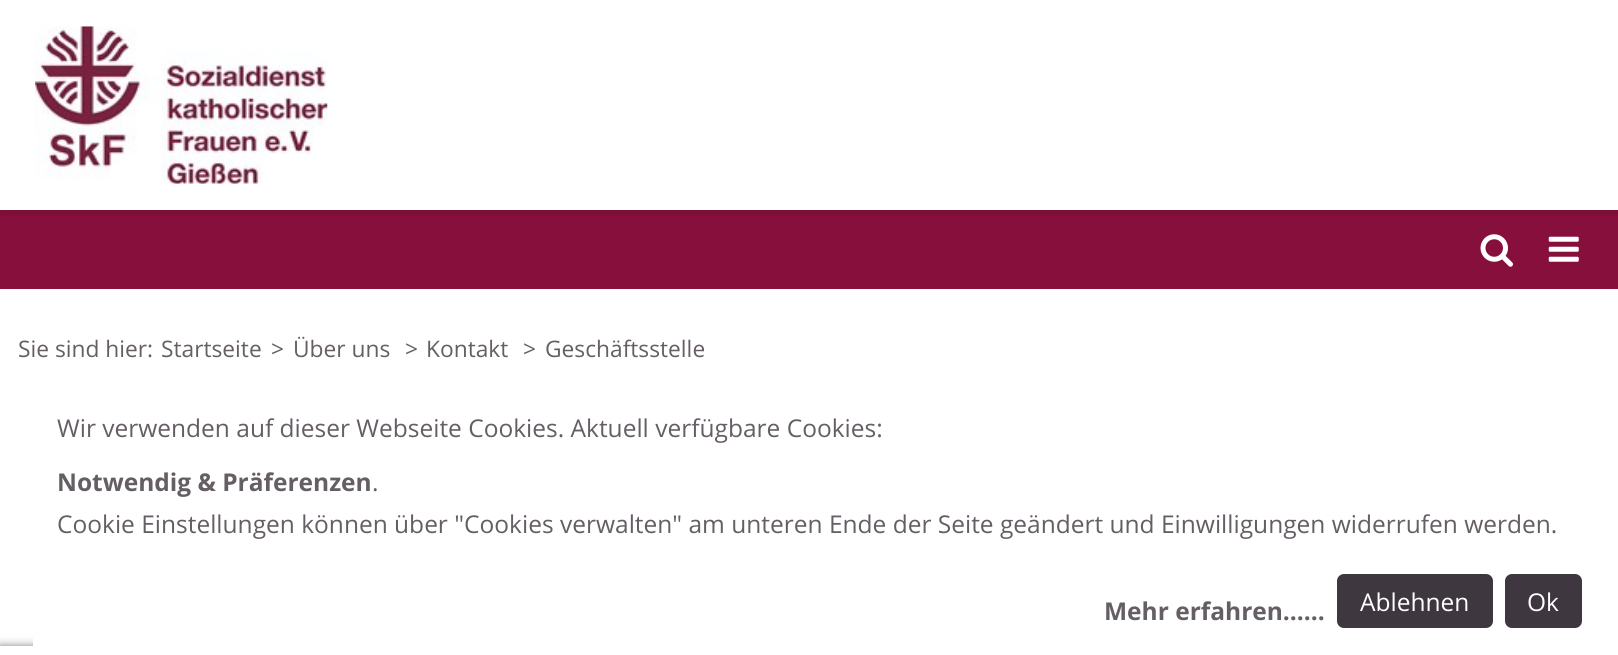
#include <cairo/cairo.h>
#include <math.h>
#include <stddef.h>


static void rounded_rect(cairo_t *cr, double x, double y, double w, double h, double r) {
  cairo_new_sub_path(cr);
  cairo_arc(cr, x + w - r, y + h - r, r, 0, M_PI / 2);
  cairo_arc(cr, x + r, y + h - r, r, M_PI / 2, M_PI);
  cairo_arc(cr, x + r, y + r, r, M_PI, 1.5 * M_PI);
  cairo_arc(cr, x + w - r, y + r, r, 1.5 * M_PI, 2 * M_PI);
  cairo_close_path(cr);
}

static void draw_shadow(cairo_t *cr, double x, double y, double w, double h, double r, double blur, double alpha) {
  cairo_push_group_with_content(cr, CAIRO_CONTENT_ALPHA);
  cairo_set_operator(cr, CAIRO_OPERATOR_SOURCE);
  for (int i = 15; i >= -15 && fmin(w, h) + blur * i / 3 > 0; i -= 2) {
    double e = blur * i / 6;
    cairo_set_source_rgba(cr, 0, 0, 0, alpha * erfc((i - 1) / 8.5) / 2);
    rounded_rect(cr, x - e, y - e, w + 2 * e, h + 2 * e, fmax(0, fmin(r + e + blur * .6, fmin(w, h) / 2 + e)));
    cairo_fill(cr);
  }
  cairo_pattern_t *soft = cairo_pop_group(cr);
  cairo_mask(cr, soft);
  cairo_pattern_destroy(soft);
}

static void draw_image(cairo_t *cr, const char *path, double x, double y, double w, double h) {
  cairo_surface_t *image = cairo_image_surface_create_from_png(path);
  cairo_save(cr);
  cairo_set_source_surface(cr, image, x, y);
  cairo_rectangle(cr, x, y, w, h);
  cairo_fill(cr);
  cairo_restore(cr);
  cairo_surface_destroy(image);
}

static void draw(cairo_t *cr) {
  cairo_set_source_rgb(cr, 1, 1, 1);
  cairo_paint(cr);
  cairo_set_source_rgb(cr, 135 / 255.0, 15 / 255.0, 59 / 255.0);
  cairo_rectangle(cr, 0, 210, 1618, 79);
  cairo_fill(cr);
  cairo_save(cr);
  cairo_rectangle(cr, 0, 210, 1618, 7);
  cairo_clip(cr);
  cairo_set_source_rgb(cr, 0, 0, 0);
  draw_shadow(cr, 0, 5, 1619, 210, 0, 2.5, 0.1);
  cairo_restore(cr);
  draw_image(cr, "images/1.png", 35, 26, 293, 158);
  draw_image(cr, "images/2.png", 1480, 234, 33, 33);
  draw_image(cr, "images/3.png", 1548, 236, 31, 26);
  cairo_set_source_rgb(cr, 0, 0, 0);
  draw_shadow(cr, 0, 646, 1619, 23, 0, 4.5, 0.5);
  cairo_set_source_rgb(cr, 1, 1, 1);
  cairo_rectangle(cr, 0, 646, 33, 9);
  cairo_fill(cr);
  cairo_rectangle(cr, 33, 637, 1585, 18);
  cairo_fill(cr);
  cairo_set_source_rgb(cr, 63 / 255.0, 55 / 255.0, 63 / 255.0);
  rounded_rect(cr, 1337, 574, 156, 54, 7);
  cairo_fill(cr);
  rounded_rect(cr, 1505, 574, 77, 54, 7);
  cairo_fill(cr);
  cairo_select_font_face(cr, "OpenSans", CAIRO_FONT_SLANT_NORMAL, CAIRO_FONT_WEIGHT_NORMAL);
  cairo_set_font_size(cr, 22.75);
  cairo_set_source_rgb(cr, 101 / 255.0, 95 / 255.0, 101 / 255.0);
  cairo_move_to(cr, 18, 357);
  cairo_show_text(cr, "Sie sind hier:");
  cairo_move_to(cr, 161, 357);
  cairo_show_text(cr, "Startseite");
  cairo_move_to(cr, 271, 357);
  cairo_show_text(cr, ">");
  cairo_move_to(cr, 293, 357);
  cairo_show_text(cr, "Über uns");
  cairo_move_to(cr, 405, 357);
  cairo_show_text(cr, ">");
  cairo_move_to(cr, 426, 357);
  cairo_show_text(cr, "Kontakt");
  cairo_move_to(cr, 523, 357);
  cairo_show_text(cr, ">");
  cairo_move_to(cr, 545, 357);
  cairo_show_text(cr, "Geschäftsstelle");
  cairo_set_font_size(cr, 24.5);
  cairo_move_to(cr, 57, 437);
  cairo_show_text(cr, "Wir verwenden auf dieser Webseite Cookies. Aktuell verfügbare Cookies:");
  cairo_select_font_face(cr, "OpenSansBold", CAIRO_FONT_SLANT_NORMAL, CAIRO_FONT_WEIGHT_BOLD);
  cairo_move_to(cr, 57, 491);
  cairo_show_text(cr, "Notwendig & Präferenzen");
  cairo_select_font_face(cr, "OpenSans", CAIRO_FONT_SLANT_NORMAL, CAIRO_FONT_WEIGHT_NORMAL);
  cairo_move_to(cr, 372, 491);
  cairo_show_text(cr, ".");
  cairo_move_to(cr, 57, 533);
  cairo_show_text(cr, "Cookie Einstellungen können über \"Cookies verwalten\" am unteren Ende der Seite geändert und Einwilligungen widerrufen werden.");
  cairo_select_font_face(cr, "OpenSansBold", CAIRO_FONT_SLANT_NORMAL, CAIRO_FONT_WEIGHT_BOLD);
  cairo_move_to(cr, 1104, 620);
  cairo_show_text(cr, "Mehr erfahren......");
  cairo_select_font_face(cr, "OpenSans", CAIRO_FONT_SLANT_NORMAL, CAIRO_FONT_WEIGHT_NORMAL);
  cairo_set_source_rgb(cr, 1, 1, 1);
  cairo_move_to(cr, 1360, 611);
  cairo_show_text(cr, "Ablehnen");
  cairo_move_to(cr, 1527, 611);
  cairo_show_text(cr, "Ok");
}

int main(void) {
  cairo_surface_t *surface = cairo_image_surface_create(CAIRO_FORMAT_RGB24, 1618, 655);
  cairo_t *cr = cairo_create(surface);
  cairo_font_options_t *options = cairo_font_options_create();
  cairo_font_options_set_hint_metrics(options, CAIRO_HINT_METRICS_OFF);
  cairo_font_options_set_hint_style(options, CAIRO_HINT_STYLE_NONE);
  cairo_set_font_options(cr, options);
  cairo_set_miter_limit(cr, 4);
  draw(cr);
  cairo_surface_write_to_png(surface, "out.png");
  cairo_font_options_destroy(options);
  cairo_destroy(cr);
  cairo_surface_destroy(surface);
  return 0;
}
